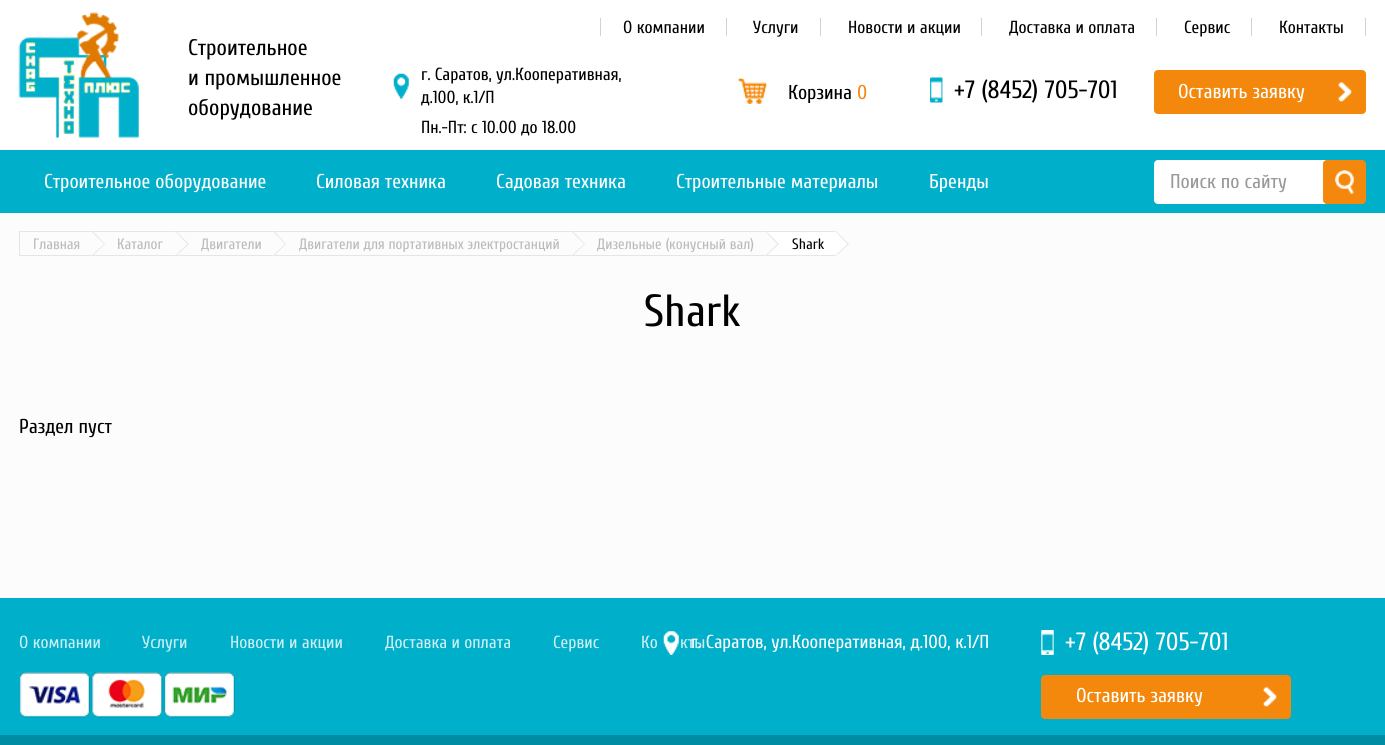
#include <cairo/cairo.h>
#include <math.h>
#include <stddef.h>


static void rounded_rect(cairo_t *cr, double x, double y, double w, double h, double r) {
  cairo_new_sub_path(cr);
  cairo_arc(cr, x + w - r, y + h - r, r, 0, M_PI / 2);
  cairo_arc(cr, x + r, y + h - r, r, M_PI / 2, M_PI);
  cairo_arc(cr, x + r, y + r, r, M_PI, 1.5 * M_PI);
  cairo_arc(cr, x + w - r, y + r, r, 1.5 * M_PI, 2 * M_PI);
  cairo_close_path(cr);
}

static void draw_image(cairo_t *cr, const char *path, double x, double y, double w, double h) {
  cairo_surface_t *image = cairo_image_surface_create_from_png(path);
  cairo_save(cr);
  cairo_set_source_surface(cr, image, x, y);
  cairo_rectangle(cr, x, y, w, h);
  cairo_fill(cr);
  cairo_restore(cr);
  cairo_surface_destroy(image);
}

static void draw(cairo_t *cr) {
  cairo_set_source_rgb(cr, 252 / 255.0, 252 / 255.0, 252 / 255.0);
  cairo_paint(cr);
  cairo_set_source_rgb(cr, 1, 1, 1);
  cairo_rectangle(cr, 0, 0, 1385, 150);
  cairo_fill(cr);
  draw_image(cr, "images/1.png", 18, 12, 121, 126);
  cairo_set_source_rgb(cr, 210 / 255.0, 210 / 255.0, 210 / 255.0);
  cairo_rectangle(cr, 726, 18, 1, 18);
  cairo_fill(cr);
  cairo_rectangle(cr, 600, 18, 1, 18);
  cairo_fill(cr);
  cairo_rectangle(cr, 820, 18, 1, 18);
  cairo_fill(cr);
  cairo_rectangle(cr, 981, 18, 1, 18);
  cairo_fill(cr);
  cairo_rectangle(cr, 1156, 18, 1, 18);
  cairo_fill(cr);
  cairo_rectangle(cr, 1251, 18, 1, 18);
  cairo_fill(cr);
  cairo_rectangle(cr, 1365, 18, 1, 18);
  cairo_fill(cr);
  draw_image(cr, "images/2.png", 393, 73, 16, 26);
  draw_image(cr, "images/3.png", 738, 78, 29, 26);
  draw_image(cr, "images/4.png", 930, 77, 13, 26);
  cairo_set_source_rgb(cr, 244 / 255.0, 136 / 255.0, 12 / 255.0);
  rounded_rect(cr, 1154, 70, 212, 44, 4);
  cairo_fill(cr);
  draw_image(cr, "images/5.png", 1338, 82, 14, 20);
  cairo_set_source_rgb(cr, 0, 175 / 255.0, 202 / 255.0);
  cairo_rectangle(cr, 0, 150, 1385, 63);
  cairo_fill(cr);
  cairo_set_source_rgb(cr, 1, 1, 1);
  rounded_rect(cr, 1154, 160, 175, 44, 4);
  cairo_fill(cr);
  cairo_set_source_rgb(cr, 244 / 255.0, 136 / 255.0, 12 / 255.0);
  rounded_rect(cr, 1323, 160, 43, 44, 4);
  cairo_fill(cr);
  draw_image(cr, "images/6.png", 1335, 170, 19, 24);
  cairo_set_source_rgb(cr, 229 / 255.0, 229 / 255.0, 229 / 255.0);
  cairo_rectangle(cr, 19, 231, 1, 25);
  cairo_fill(cr);
  cairo_rectangle(cr, 20, 231, 73, 1);
  cairo_fill(cr);
  cairo_rectangle(cr, 20, 255, 73, 1);
  cairo_fill(cr);
  cairo_new_path(cr);
  cairo_move_to(cr, 92.5, 256);
  cairo_line_to(cr, 92.5, 231);
  cairo_line_to(cr, 105, 244);
  cairo_close_path(cr);
  cairo_fill(cr);
  cairo_set_source_rgb(cr, 252 / 255.0, 252 / 255.0, 252 / 255.0);
  cairo_new_path(cr);
  cairo_move_to(cr, 91, 256);
  cairo_line_to(cr, 91, 231);
  cairo_line_to(cr, 104, 244);
  cairo_close_path(cr);
  cairo_fill(cr);
  cairo_set_source_rgb(cr, 229 / 255.0, 229 / 255.0, 229 / 255.0);
  cairo_rectangle(cr, 93, 231, 83, 1);
  cairo_fill(cr);
  cairo_rectangle(cr, 93, 255, 83, 1);
  cairo_fill(cr);
  cairo_new_path(cr);
  cairo_move_to(cr, 176, 256);
  cairo_line_to(cr, 176, 231);
  cairo_line_to(cr, 189, 244);
  cairo_close_path(cr);
  cairo_fill(cr);
  cairo_set_source_rgb(cr, 252 / 255.0, 252 / 255.0, 252 / 255.0);
  cairo_new_path(cr);
  cairo_move_to(cr, 175, 256);
  cairo_line_to(cr, 175, 231);
  cairo_line_to(cr, 187.5, 244);
  cairo_close_path(cr);
  cairo_fill(cr);
  cairo_set_source_rgb(cr, 229 / 255.0, 229 / 255.0, 229 / 255.0);
  cairo_rectangle(cr, 176, 231, 98, 1);
  cairo_fill(cr);
  cairo_rectangle(cr, 176, 255, 98, 1);
  cairo_fill(cr);
  cairo_new_path(cr);
  cairo_move_to(cr, 274, 256);
  cairo_line_to(cr, 274, 231);
  cairo_line_to(cr, 286, 244);
  cairo_close_path(cr);
  cairo_fill(cr);
  cairo_set_source_rgb(cr, 252 / 255.0, 252 / 255.0, 252 / 255.0);
  cairo_new_path(cr);
  cairo_move_to(cr, 272.5, 256);
  cairo_line_to(cr, 272.5, 231);
  cairo_line_to(cr, 285, 244);
  cairo_close_path(cr);
  cairo_fill(cr);
  cairo_set_source_rgb(cr, 229 / 255.0, 229 / 255.0, 229 / 255.0);
  cairo_rectangle(cr, 274, 231, 299, 1);
  cairo_fill(cr);
  cairo_rectangle(cr, 274, 255, 299, 1);
  cairo_fill(cr);
  cairo_new_path(cr);
  cairo_move_to(cr, 572.5, 256);
  cairo_line_to(cr, 572.5, 231);
  cairo_line_to(cr, 585, 244);
  cairo_close_path(cr);
  cairo_fill(cr);
  cairo_set_source_rgb(cr, 252 / 255.0, 252 / 255.0, 252 / 255.0);
  cairo_new_path(cr);
  cairo_move_to(cr, 571, 256);
  cairo_line_to(cr, 571, 231);
  cairo_line_to(cr, 584, 244);
  cairo_close_path(cr);
  cairo_fill(cr);
  cairo_set_source_rgb(cr, 229 / 255.0, 229 / 255.0, 229 / 255.0);
  cairo_rectangle(cr, 573, 231, 193, 1);
  cairo_fill(cr);
  cairo_rectangle(cr, 573, 255, 193, 1);
  cairo_fill(cr);
  cairo_set_source_rgb(cr, 1, 1, 1);
  cairo_rectangle(cr, 767, 232, 68, 23);
  cairo_fill(cr);
  cairo_set_source_rgb(cr, 229 / 255.0, 229 / 255.0, 229 / 255.0);
  cairo_rectangle(cr, 766, 231, 70, 1);
  cairo_fill(cr);
  cairo_rectangle(cr, 766, 255, 70, 1);
  cairo_fill(cr);
  cairo_new_path(cr);
  cairo_move_to(cr, 766, 256);
  cairo_line_to(cr, 766, 231);
  cairo_line_to(cr, 779, 244);
  cairo_close_path(cr);
  cairo_fill(cr);
  cairo_set_source_rgb(cr, 252 / 255.0, 252 / 255.0, 252 / 255.0);
  cairo_new_path(cr);
  cairo_move_to(cr, 765, 256);
  cairo_line_to(cr, 765, 231);
  cairo_line_to(cr, 777.5, 244);
  cairo_close_path(cr);
  cairo_fill(cr);
  cairo_set_source_rgb(cr, 229 / 255.0, 229 / 255.0, 229 / 255.0);
  cairo_new_path(cr);
  cairo_move_to(cr, 836, 256);
  cairo_line_to(cr, 836, 231);
  cairo_line_to(cr, 849, 244);
  cairo_close_path(cr);
  cairo_fill(cr);
  cairo_set_source_rgb(cr, 1, 1, 1);
  cairo_new_path(cr);
  cairo_move_to(cr, 835, 256);
  cairo_line_to(cr, 835, 231);
  cairo_line_to(cr, 847.5, 244);
  cairo_close_path(cr);
  cairo_fill(cr);
  cairo_set_source_rgb(cr, 0, 175 / 255.0, 202 / 255.0);
  cairo_rectangle(cr, 0, 598, 1385, 137);
  cairo_fill(cr);
  draw_image(cr, "images/7.png", 663, 631, 16, 24);
  draw_image(cr, "images/8.png", 1041, 630, 13, 25);
  draw_image(cr, "images/9.png", 19, 672, 216, 46);
  cairo_set_source_rgb(cr, 244 / 255.0, 136 / 255.0, 12 / 255.0);
  rounded_rect(cr, 1041, 675, 250, 44, 4);
  cairo_fill(cr);
  draw_image(cr, "images/5.png", 1263, 687, 14, 20);
  cairo_set_source_rgb(cr, 0, 140 / 255.0, 162 / 255.0);
  cairo_rectangle(cr, 0, 735, 1385, 10);
  cairo_fill(cr);
  cairo_select_font_face(cr, "Cuprum", CAIRO_FONT_SLANT_NORMAL, CAIRO_FONT_WEIGHT_NORMAL);
  cairo_set_font_size(cr, 17.5);
  cairo_set_source_rgb(cr, 0, 0, 0);
  cairo_move_to(cr, 623, 33);
  cairo_show_text(cr, "О компании");
  cairo_move_to(cr, 753, 33);
  cairo_show_text(cr, "Услуги");
  cairo_move_to(cr, 848, 33);
  cairo_show_text(cr, "Новости и акции");
  cairo_move_to(cr, 1009, 33);
  cairo_show_text(cr, "Доставка и оплата");
  cairo_move_to(cr, 1184, 33);
  cairo_show_text(cr, "Сервис");
  cairo_move_to(cr, 1279, 33);
  cairo_show_text(cr, "Контакты");
  cairo_set_font_size(cr, 22.5);
  cairo_move_to(cr, 188, 55);
  cairo_show_text(cr, "Строительное");
  cairo_move_to(cr, 188, 85);
  cairo_show_text(cr, "и промышленное");
  cairo_move_to(cr, 188, 115);
  cairo_show_text(cr, "оборудование");
  cairo_set_font_size(cr, 17.5);
  cairo_move_to(cr, 421, 80);
  cairo_show_text(cr, "г. Саратов, ул.Кооперативная,");
  cairo_move_to(cr, 421, 103);
  cairo_show_text(cr, "д.100, к.1/П");
  cairo_move_to(cr, 421, 133);
  cairo_show_text(cr, "Пн.-Пт: с 10.00 до 18.00");
  cairo_set_font_size(cr, 20);
  cairo_move_to(cr, 788, 99);
  cairo_show_text(cr, "Корзина");
  cairo_set_source_rgb(cr, 244 / 255.0, 136 / 255.0, 12 / 255.0);
  cairo_move_to(cr, 857, 99);
  cairo_show_text(cr, "0");
  cairo_set_font_size(cr, 25);
  cairo_set_source_rgb(cr, 0, 0, 0);
  cairo_move_to(cr, 954, 98);
  cairo_show_text(cr, "+7 (8452) 705-701");
  cairo_set_font_size(cr, 20);
  cairo_set_source_rgb(cr, 1, 1, 1);
  cairo_move_to(cr, 1178, 98);
  cairo_show_text(cr, "Оставить заявку");
  cairo_set_source_rgb(cr, 154 / 255.0, 154 / 255.0, 154 / 255.0);
  cairo_move_to(cr, 1170, 188);
  cairo_show_text(cr, "Поиск по сайту");
  cairo_set_source_rgb(cr, 1, 1, 1);
  cairo_move_to(cr, 44, 188);
  cairo_show_text(cr, "Строительное оборудование");
  cairo_move_to(cr, 316, 188);
  cairo_show_text(cr, "Силовая техника");
  cairo_move_to(cr, 496, 188);
  cairo_show_text(cr, "Садовая техника");
  cairo_move_to(cr, 676, 188);
  cairo_show_text(cr, "Строительные материалы");
  cairo_move_to(cr, 929, 188);
  cairo_show_text(cr, "Бренды");
  cairo_set_font_size(cr, 15);
  cairo_set_source_rgb(cr, 187 / 255.0, 187 / 255.0, 187 / 255.0);
  cairo_move_to(cr, 33, 249);
  cairo_show_text(cr, "Главная");
  cairo_move_to(cr, 117, 249);
  cairo_show_text(cr, "Каталог");
  cairo_move_to(cr, 201, 249);
  cairo_show_text(cr, "Двигатели");
  cairo_move_to(cr, 299, 249);
  cairo_show_text(cr, "Двигатели для портативных электростанций");
  cairo_move_to(cr, 597, 249);
  cairo_show_text(cr, "Дизельные (конусный вал)");
  cairo_set_source_rgb(cr, 0, 0, 0);
  cairo_move_to(cr, 792, 249);
  cairo_show_text(cr, "Shark");
  cairo_set_font_size(cr, 45);
  cairo_move_to(cr, 644, 326);
  cairo_show_text(cr, "Shark");
  cairo_set_font_size(cr, 20);
  cairo_move_to(cr, 19, 433);
  cairo_show_text(cr, "Раздел пуст");
  cairo_set_font_size(cr, 17.5);
  cairo_set_source_rgb(cr, 204 / 255.0, 239 / 255.0, 244 / 255.0);
  cairo_move_to(cr, 19, 648);
  cairo_show_text(cr, "О компании");
  cairo_move_to(cr, 142, 648);
  cairo_show_text(cr, "Услуги");
  cairo_move_to(cr, 230, 648);
  cairo_show_text(cr, "Новости и акции");
  cairo_move_to(cr, 385, 648);
  cairo_show_text(cr, "Доставка и оплата");
  cairo_move_to(cr, 553, 648);
  cairo_show_text(cr, "Сервис");
  cairo_move_to(cr, 641, 648);
  cairo_show_text(cr, "Ко");
  cairo_move_to(cr, 680, 648);
  cairo_show_text(cr, "кты");
  cairo_set_font_size(cr, 18.75);
  cairo_set_source_rgb(cr, 1, 1, 1);
  cairo_move_to(cr, 691, 648);
  cairo_show_text(cr, "г. Саратов, ул.Кооперативная, д.100, к.1/П");
  cairo_set_font_size(cr, 25);
  cairo_move_to(cr, 1065, 650);
  cairo_show_text(cr, "+7 (8452) 705-701");
  cairo_set_font_size(cr, 20);
  cairo_move_to(cr, 1076, 702);
  cairo_show_text(cr, "Оставить заявку");
}

int main(void) {
  cairo_surface_t *surface = cairo_image_surface_create(CAIRO_FORMAT_RGB24, 1385, 745);
  cairo_t *cr = cairo_create(surface);
  cairo_font_options_t *options = cairo_font_options_create();
  cairo_font_options_set_hint_metrics(options, CAIRO_HINT_METRICS_OFF);
  cairo_font_options_set_hint_style(options, CAIRO_HINT_STYLE_NONE);
  cairo_set_font_options(cr, options);
  cairo_set_miter_limit(cr, 4);
  draw(cr);
  cairo_surface_write_to_png(surface, "out.png");
  cairo_font_options_destroy(options);
  cairo_destroy(cr);
  cairo_surface_destroy(surface);
  return 0;
}
